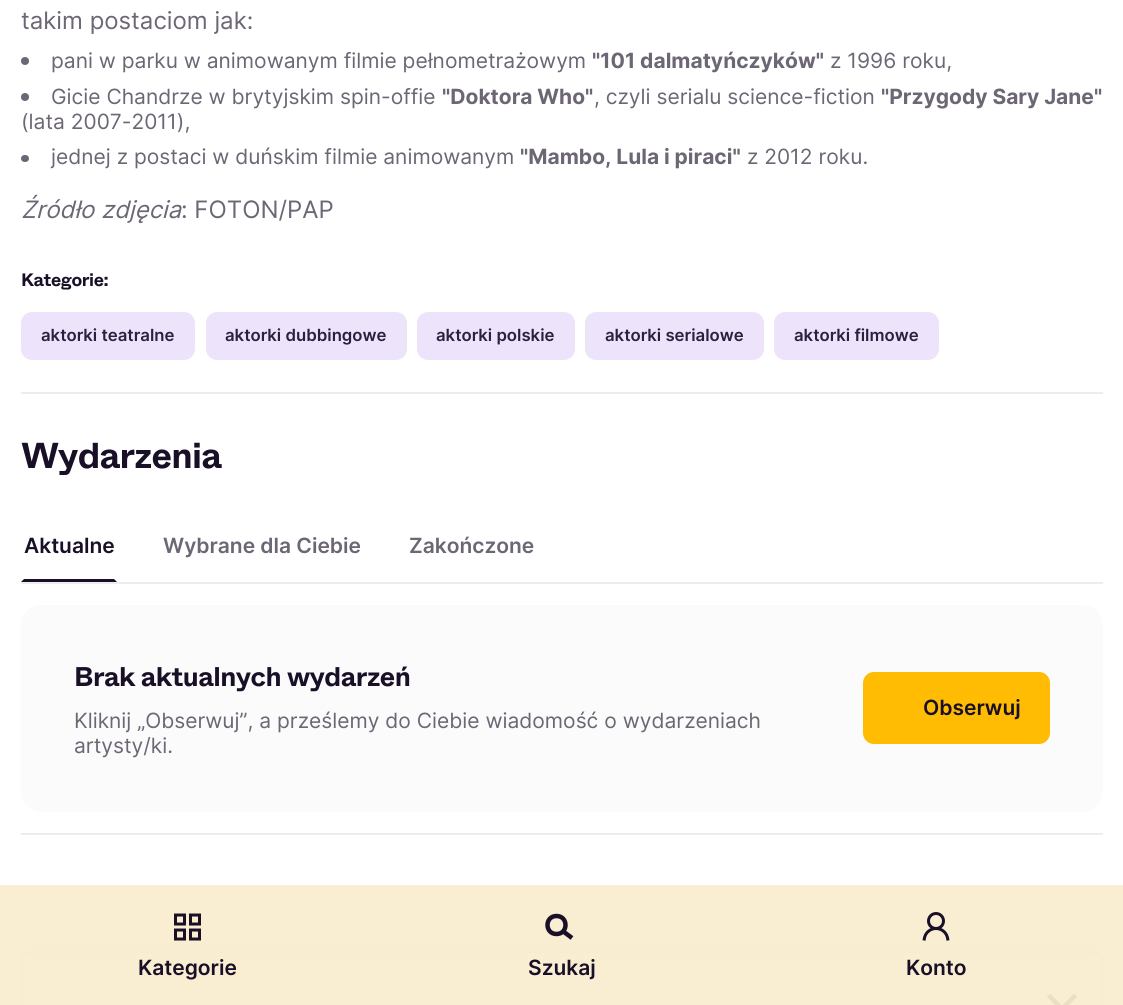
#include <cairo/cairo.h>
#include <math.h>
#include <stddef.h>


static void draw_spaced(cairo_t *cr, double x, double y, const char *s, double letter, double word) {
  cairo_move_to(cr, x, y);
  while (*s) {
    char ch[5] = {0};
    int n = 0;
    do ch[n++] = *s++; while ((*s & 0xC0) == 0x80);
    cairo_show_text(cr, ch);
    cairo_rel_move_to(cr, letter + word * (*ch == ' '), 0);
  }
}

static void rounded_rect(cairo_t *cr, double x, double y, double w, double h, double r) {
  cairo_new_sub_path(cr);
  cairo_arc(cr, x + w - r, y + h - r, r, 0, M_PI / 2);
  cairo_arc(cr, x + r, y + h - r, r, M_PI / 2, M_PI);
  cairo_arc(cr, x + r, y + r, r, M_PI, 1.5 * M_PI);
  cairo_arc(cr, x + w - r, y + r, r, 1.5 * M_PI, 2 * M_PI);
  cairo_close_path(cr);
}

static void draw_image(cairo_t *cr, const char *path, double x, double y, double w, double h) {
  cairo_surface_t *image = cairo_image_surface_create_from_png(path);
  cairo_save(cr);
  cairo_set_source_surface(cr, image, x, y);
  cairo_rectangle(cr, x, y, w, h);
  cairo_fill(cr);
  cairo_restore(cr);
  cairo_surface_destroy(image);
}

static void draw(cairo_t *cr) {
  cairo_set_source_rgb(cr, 1, 1, 1);
  cairo_paint(cr);
  cairo_set_source_rgb(cr, 237 / 255.0, 236 / 255.0, 238 / 255.0);
  cairo_rectangle(cr, 21, 392, 1082, 2);
  cairo_fill(cr);
  cairo_set_source_rgb(cr, 108 / 255.0, 102 / 255.0, 117 / 255.0);
  cairo_arc(cr, 25, 61, 4, 0, 2 * M_PI);
  cairo_fill(cr);
  cairo_arc(cr, 25, 97, 4, 0, 2 * M_PI);
  cairo_fill(cr);
  rounded_rect(cr, 21, 155, 8, 7, 3.5);
  cairo_fill(cr);
  cairo_set_source_rgb(cr, 237 / 255.0, 228 / 255.0, 251 / 255.0);
  rounded_rect(cr, 21, 312, 174, 48, 11);
  cairo_fill(cr);
  rounded_rect(cr, 206, 312, 201, 48, 11);
  cairo_fill(cr);
  rounded_rect(cr, 417, 312, 158, 48, 11);
  cairo_fill(cr);
  rounded_rect(cr, 585, 312, 179, 48, 11);
  cairo_fill(cr);
  rounded_rect(cr, 774, 312, 165, 48, 11);
  cairo_fill(cr);
  cairo_set_source_rgb(cr, 237 / 255.0, 236 / 255.0, 238 / 255.0);
  cairo_rectangle(cr, 21, 833, 1082, 2);
  cairo_fill(cr);
  cairo_rectangle(cr, 21, 582, 1082, 2);
  cairo_fill(cr);
  cairo_set_source_rgb(cr, 25 / 255.0, 16 / 255.0, 40 / 255.0);
  cairo_new_path(cr);
  cairo_move_to(cr, 117, 582);
  cairo_line_to(cr, 21, 582);
  cairo_line_to(cr, 24, 579);
  cairo_line_to(cr, 114, 579);
  cairo_close_path(cr);
  cairo_fill(cr);
  cairo_set_source_rgb(cr, 251 / 255.0, 251 / 255.0, 251 / 255.0);
  rounded_rect(cr, 21, 605, 1082, 207, 21);
  cairo_fill(cr);
  cairo_set_source_rgb(cr, 1, 188 / 255.0, 3 / 255.0);
  rounded_rect(cr, 863, 672, 187, 72, 11);
  cairo_fill(cr);
  rounded_rect(cr, 22, 952, 1080, 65, 10);
  cairo_set_source_rgb(cr, 237 / 255.0, 236 / 255.0, 238 / 255.0);
  cairo_stroke(cr);
  draw_image(cr, "images/1.png", 1047, 993, 30, 12);
  cairo_set_source_rgba(cr, 249 / 255.0, 235 / 255.0, 205 / 255.0, 0.9);
  cairo_rectangle(cr, 0, 885, 1123, 120);
  cairo_fill(cr);
  draw_image(cr, "images/2.png", 174, 913, 27, 28);
  cairo_new_path(cr);
  cairo_move_to(cr, 556.5, 934);
  cairo_curve_to(cr, 568.5, 934, 568.5, 916, 556.5, 916);
  cairo_curve_to(cr, 544.5, 916, 544.5, 934, 556.5, 934);
  cairo_close_path(cr);
  cairo_move_to(cr, 572, 938);
  cairo_line_to(cr, 562, 930.5);
  cairo_set_source_rgb(cr, 25 / 255.0, 16 / 255.0, 40 / 255.0);
  cairo_set_line_width(cr, 4.5);
  cairo_stroke(cr);
  draw_image(cr, "images/3.png", 922, 912, 28, 29);
  cairo_select_font_face(cr, "Inter", CAIRO_FONT_SLANT_NORMAL, CAIRO_FONT_WEIGHT_NORMAL);
  cairo_set_font_size(cr, 24);
  cairo_set_source_rgb(cr, 108 / 255.0, 102 / 255.0, 117 / 255.0);
  cairo_move_to(cr, 21, 29);
  cairo_show_text(cr, "takim postaciom jak:");
  cairo_set_font_size(cr, 21);
  cairo_move_to(cr, 51, 68);
  cairo_show_text(cr, "pani w parku w animowanym filmie pełnometrażowym");
  cairo_select_font_face(cr, "Inter", CAIRO_FONT_SLANT_NORMAL, CAIRO_FONT_WEIGHT_BOLD);
  cairo_move_to(cr, 592, 68);
  cairo_show_text(cr, "\"101 dalmatyńczyków\"");
  cairo_select_font_face(cr, "Inter", CAIRO_FONT_SLANT_NORMAL, CAIRO_FONT_WEIGHT_NORMAL);
  cairo_move_to(cr, 830, 68);
  cairo_show_text(cr, "z 1996 roku,");
  cairo_move_to(cr, 51, 104);
  cairo_show_text(cr, "Gicie Chandrze w brytyjskim spin-offie");
  cairo_select_font_face(cr, "Inter", CAIRO_FONT_SLANT_NORMAL, CAIRO_FONT_WEIGHT_BOLD);
  cairo_move_to(cr, 442, 104);
  cairo_show_text(cr, "\"Doktora Who\"");
  cairo_select_font_face(cr, "Inter", CAIRO_FONT_SLANT_NORMAL, CAIRO_FONT_WEIGHT_NORMAL);
  cairo_move_to(cr, 594, 104);
  cairo_show_text(cr, ", czyli serialu science-fiction");
  cairo_select_font_face(cr, "Inter", CAIRO_FONT_SLANT_NORMAL, CAIRO_FONT_WEIGHT_BOLD);
  cairo_move_to(cr, 881, 104);
  cairo_show_text(cr, "\"Przygody Sary Jane\"");
  cairo_select_font_face(cr, "Inter", CAIRO_FONT_SLANT_NORMAL, CAIRO_FONT_WEIGHT_NORMAL);
  cairo_move_to(cr, 21, 129);
  cairo_show_text(cr, "(lata 2007-2011),");
  cairo_move_to(cr, 51, 164);
  cairo_show_text(cr, "jednej z postaci w duńskim filmie animowanym");
  cairo_select_font_face(cr, "Inter", CAIRO_FONT_SLANT_NORMAL, CAIRO_FONT_WEIGHT_BOLD);
  cairo_move_to(cr, 520, 164);
  cairo_show_text(cr, "\"Mambo, Lula i piraci\"");
  cairo_select_font_face(cr, "Inter", CAIRO_FONT_SLANT_NORMAL, CAIRO_FONT_WEIGHT_NORMAL);
  cairo_move_to(cr, 747, 164);
  cairo_show_text(cr, "z 2012 roku.");
  cairo_select_font_face(cr, "Inter", CAIRO_FONT_SLANT_ITALIC, CAIRO_FONT_WEIGHT_NORMAL);
  cairo_set_font_size(cr, 24);
  cairo_move_to(cr, 21, 218);
  cairo_show_text(cr, "Źródło zdjęcia");
  cairo_select_font_face(cr, "Inter", CAIRO_FONT_SLANT_NORMAL, CAIRO_FONT_WEIGHT_NORMAL);
  cairo_move_to(cr, 181, 218);
  cairo_show_text(cr, ": FOTON/PAP");
  cairo_select_font_face(cr, "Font", CAIRO_FONT_SLANT_NORMAL, CAIRO_FONT_WEIGHT_BOLD);
  cairo_set_font_size(cr, 18);
  cairo_set_source_rgb(cr, 25 / 255.0, 16 / 255.0, 40 / 255.0);
  draw_spaced(cr, 21, 286, "Kategorie:", -0.4, 0);
  cairo_select_font_face(cr, "Inter SemiBold", CAIRO_FONT_SLANT_NORMAL, CAIRO_FONT_WEIGHT_NORMAL);
  cairo_set_font_size(cr, 16.75);
  cairo_set_source_rgb(cr, 45 / 255.0, 31 / 255.0, 63 / 255.0);
  cairo_move_to(cr, 41, 341);
  cairo_show_text(cr, "aktorki teatralne");
  cairo_move_to(cr, 225, 341);
  cairo_show_text(cr, "aktorki dubbingowe");
  cairo_move_to(cr, 436, 341);
  cairo_show_text(cr, "aktorki polskie");
  cairo_move_to(cr, 605, 341);
  cairo_show_text(cr, "aktorki serialowe");
  cairo_move_to(cr, 794, 341);
  cairo_show_text(cr, "aktorki filmowe");
  cairo_select_font_face(cr, "Font", CAIRO_FONT_SLANT_NORMAL, CAIRO_FONT_WEIGHT_BOLD);
  cairo_set_font_size(cr, 36);
  cairo_set_source_rgb(cr, 25 / 255.0, 16 / 255.0, 40 / 255.0);
  draw_spaced(cr, 21, 468, "Wydarzenia", -0.75, 0);
  cairo_select_font_face(cr, "Inter SemiBold", CAIRO_FONT_SLANT_NORMAL, CAIRO_FONT_WEIGHT_NORMAL);
  cairo_set_font_size(cr, 21);
  cairo_move_to(cr, 24, 553);
  cairo_show_text(cr, "Aktualne");
  cairo_set_source_rgb(cr, 108 / 255.0, 102 / 255.0, 117 / 255.0);
  cairo_move_to(cr, 163, 553);
  cairo_show_text(cr, "Wybrane dla Ciebie");
  cairo_move_to(cr, 409, 553);
  cairo_show_text(cr, "Zakończone");
  cairo_select_font_face(cr, "Font", CAIRO_FONT_SLANT_NORMAL, CAIRO_FONT_WEIGHT_BOLD);
  cairo_set_font_size(cr, 27);
  cairo_set_source_rgb(cr, 25 / 255.0, 16 / 255.0, 40 / 255.0);
  draw_spaced(cr, 74, 686, "Brak aktualnych wydarzeń", -0.5, 0);
  cairo_select_font_face(cr, "Inter", CAIRO_FONT_SLANT_NORMAL, CAIRO_FONT_WEIGHT_NORMAL);
  cairo_set_font_size(cr, 21);
  cairo_set_source_rgb(cr, 108 / 255.0, 102 / 255.0, 117 / 255.0);
  cairo_move_to(cr, 74, 728);
  cairo_show_text(cr, "Kliknij „Obserwuj”, a prześlemy do Ciebie wiadomość o wydarzeniach");
  cairo_move_to(cr, 74, 753);
  cairo_show_text(cr, "artysty/ki.");
  cairo_select_font_face(cr, "Inter SemiBold", CAIRO_FONT_SLANT_NORMAL, CAIRO_FONT_WEIGHT_NORMAL);
  cairo_set_source_rgb(cr, 25 / 255.0, 16 / 255.0, 40 / 255.0);
  cairo_move_to(cr, 923, 715);
  cairo_show_text(cr, "Obserwuj");
  cairo_move_to(cr, 138, 975);
  cairo_show_text(cr, "Kategorie");
  cairo_move_to(cr, 528, 975);
  cairo_show_text(cr, "Szukaj");
  cairo_move_to(cr, 906, 975);
  cairo_show_text(cr, "Konto");
}

int main(void) {
  cairo_surface_t *surface = cairo_image_surface_create(CAIRO_FORMAT_RGB24, 1123, 1005);
  cairo_t *cr = cairo_create(surface);
  cairo_font_options_t *options = cairo_font_options_create();
  cairo_font_options_set_hint_metrics(options, CAIRO_HINT_METRICS_OFF);
  cairo_font_options_set_hint_style(options, CAIRO_HINT_STYLE_NONE);
  cairo_set_font_options(cr, options);
  cairo_set_miter_limit(cr, 4);
  draw(cr);
  cairo_surface_write_to_png(surface, "out.png");
  cairo_font_options_destroy(options);
  cairo_destroy(cr);
  cairo_surface_destroy(surface);
  return 0;
}
